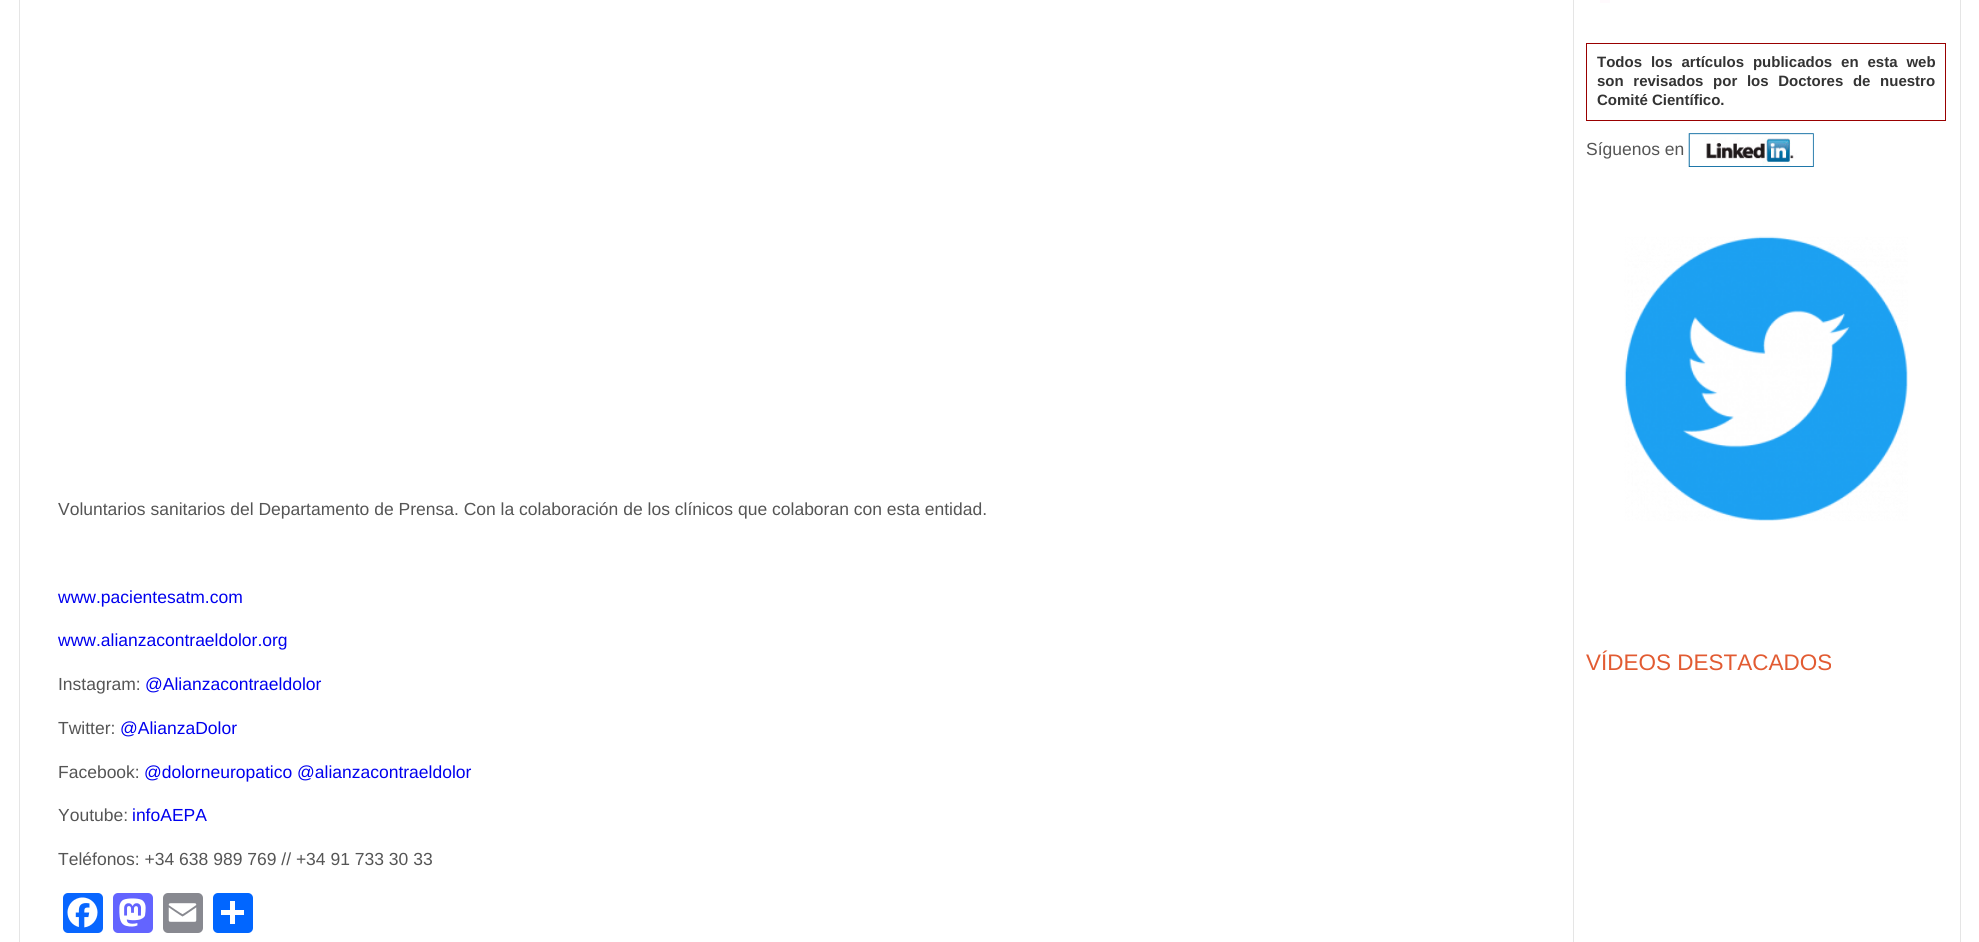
#include <cairo/cairo.h>
#include <math.h>
#include <stddef.h>


static void draw_spaced(cairo_t *cr, double x, double y, const char *s, double letter, double word) {
  cairo_move_to(cr, x, y);
  while (*s) {
    char ch[5] = {0};
    int n = 0;
    do ch[n++] = *s++; while ((*s & 0xC0) == 0x80);
    cairo_show_text(cr, ch);
    cairo_rel_move_to(cr, letter + word * (*ch == ' '), 0);
  }
}

static void rounded_rect(cairo_t *cr, double x, double y, double w, double h, double r) {
  cairo_new_sub_path(cr);
  cairo_arc(cr, x + w - r, y + h - r, r, 0, M_PI / 2);
  cairo_arc(cr, x + r, y + h - r, r, M_PI / 2, M_PI);
  cairo_arc(cr, x + r, y + r, r, M_PI, 1.5 * M_PI);
  cairo_arc(cr, x + w - r, y + r, r, 1.5 * M_PI, 2 * M_PI);
  cairo_close_path(cr);
}

static void draw_image(cairo_t *cr, const char *path, double x, double y, double w, double h) {
  cairo_surface_t *image = cairo_image_surface_create_from_png(path);
  cairo_save(cr);
  cairo_set_source_surface(cr, image, x, y);
  cairo_rectangle(cr, x, y, w, h);
  cairo_fill(cr);
  cairo_restore(cr);
  cairo_surface_destroy(image);
}

static void draw(cairo_t *cr) {
  cairo_set_source_rgb(cr, 1, 1, 1);
  cairo_paint(cr);
  cairo_set_source_rgb(cr, 229 / 255.0, 229 / 255.0, 229 / 255.0);
  cairo_new_path(cr);
  cairo_move_to(cr, 1961, -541);
  cairo_line_to(cr, 1961, 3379);
  cairo_line_to(cr, 1960, 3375);
  cairo_line_to(cr, 1960, -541);
  cairo_close_path(cr);
  cairo_fill(cr);
  cairo_new_path(cr);
  cairo_move_to(cr, 19, 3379);
  cairo_line_to(cr, 19, -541);
  cairo_line_to(cr, 20, -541);
  cairo_line_to(cr, 20, 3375);
  cairo_close_path(cr);
  cairo_fill(cr);
  cairo_set_source_rgb(cr, 8 / 255.0, 102 / 255.0, 1);
  rounded_rect(cr, 63, 893, 40, 40, 5);
  cairo_fill(cr);
  draw_image(cr, "images/1.png", 67, 897, 31, 31);
  cairo_set_source_rgb(cr, 99 / 255.0, 100 / 255.0, 1);
  rounded_rect(cr, 113, 893, 40, 40, 5);
  cairo_fill(cr);
  draw_image(cr, "images/2.png", 119, 898, 27, 29);
  cairo_set_source_rgb(cr, 136 / 255.0, 137 / 255.0, 144 / 255.0);
  rounded_rect(cr, 163, 893, 40, 40, 5);
  cairo_fill(cr);
  draw_image(cr, "images/3.png", 168, 903, 29, 19);
  cairo_set_source_rgb(cr, 1 / 255.0, 102 / 255.0, 1);
  rounded_rect(cr, 213, 893, 40, 40, 5);
  cairo_fill(cr);
  cairo_set_source_rgb(cr, 1, 1, 1);
  cairo_rectangle(cr, 230, 901, 5, 23);
  cairo_fill(cr);
  cairo_rectangle(cr, 221, 910, 23, 5);
  cairo_fill(cr);
  cairo_set_source_rgb(cr, 229 / 255.0, 229 / 255.0, 229 / 255.0);
  cairo_rectangle(cr, 1573, 0, 1, 942);
  cairo_fill(cr);
  cairo_set_source_rgb(cr, 1, 250 / 255.0, 253 / 255.0);
  cairo_rectangle(cr, 1600, 0, 10, 3);
  cairo_fill(cr);
  cairo_rectangle(cr, 1586.5, 43.5, 359, 77);
  cairo_set_source_rgb(cr, 153 / 255.0, 0, 0);
  cairo_set_line_width(cr, 1);
  cairo_stroke(cr);
  draw_image(cr, "images/4.png", 1688, 133, 126, 34);
  draw_image(cr, "images/5.png", 1624, 236, 284, 285);
  cairo_select_font_face(cr, "Liberation Sans", CAIRO_FONT_SLANT_NORMAL, CAIRO_FONT_WEIGHT_NORMAL);
  cairo_set_font_size(cr, 17.5);
  cairo_set_source_rgb(cr, 85 / 255.0, 85 / 255.0, 85 / 255.0);
  cairo_move_to(cr, 58, 515);
  cairo_show_text(cr, "Voluntarios sanitarios del Departamento de Prensa. Con la colaboración de los clínicos que colaboran con esta entidad.");
  cairo_set_source_rgb(cr, 0, 0, 238 / 255.0);
  cairo_move_to(cr, 58, 603);
  cairo_show_text(cr, "www.pacientesatm.com");
  cairo_move_to(cr, 58, 646);
  cairo_show_text(cr, "www.alianzacontraeldolor.org");
  cairo_set_source_rgb(cr, 85 / 255.0, 85 / 255.0, 85 / 255.0);
  cairo_move_to(cr, 58, 690);
  cairo_show_text(cr, "Instagram:");
  cairo_set_source_rgb(cr, 0, 0, 238 / 255.0);
  cairo_move_to(cr, 145, 690);
  cairo_show_text(cr, "@Alianzacontraeldolor");
  cairo_set_source_rgb(cr, 85 / 255.0, 85 / 255.0, 85 / 255.0);
  cairo_move_to(cr, 58, 734);
  cairo_show_text(cr, "Twitter:");
  cairo_set_source_rgb(cr, 0, 0, 238 / 255.0);
  cairo_move_to(cr, 120, 734);
  cairo_show_text(cr, "@AlianzaDolor");
  cairo_set_source_rgb(cr, 85 / 255.0, 85 / 255.0, 85 / 255.0);
  cairo_move_to(cr, 58, 778);
  cairo_show_text(cr, "Facebook:");
  cairo_set_source_rgb(cr, 0, 0, 238 / 255.0);
  cairo_move_to(cr, 144, 778);
  cairo_show_text(cr, "@dolorneuropatico @alianzacontraeldolor");
  cairo_set_source_rgb(cr, 85 / 255.0, 85 / 255.0, 85 / 255.0);
  cairo_move_to(cr, 58, 821);
  cairo_show_text(cr, "Youtube:");
  cairo_set_source_rgb(cr, 0, 0, 238 / 255.0);
  cairo_move_to(cr, 132, 821);
  cairo_show_text(cr, "infoAEPA");
  cairo_set_source_rgb(cr, 85 / 255.0, 85 / 255.0, 85 / 255.0);
  cairo_move_to(cr, 58, 865);
  cairo_show_text(cr, "Teléfonos: +34 638 989 769 // +34 91 733 30 33");
  cairo_select_font_face(cr, "Liberation Sans", CAIRO_FONT_SLANT_NORMAL, CAIRO_FONT_WEIGHT_BOLD);
  cairo_set_font_size(cr, 15);
  cairo_set_source_rgb(cr, 51 / 255.0, 51 / 255.0, 51 / 255.0);
  draw_spaced(cr, 1597, 67, "Todos los artículos publicados en esta web", 0, 4.75);
  draw_spaced(cr, 1597, 86, "son revisados por los Doctores de nuestro", 0, 5.5);
  cairo_move_to(cr, 1597, 105);
  cairo_show_text(cr, "Comité Científico.");
  cairo_select_font_face(cr, "Liberation Sans", CAIRO_FONT_SLANT_NORMAL, CAIRO_FONT_WEIGHT_NORMAL);
  cairo_set_font_size(cr, 17.5);
  cairo_set_source_rgb(cr, 85 / 255.0, 85 / 255.0, 85 / 255.0);
  cairo_move_to(cr, 1586, 155);
  cairo_show_text(cr, "Síguenos en");
  cairo_set_font_size(cr, 22.5);
  cairo_set_source_rgb(cr, 226 / 255.0, 91 / 255.0, 50 / 255.0);
  cairo_move_to(cr, 1586, 670);
  cairo_show_text(cr, "VÍDEOS DESTACADOS");
}

int main(void) {
  cairo_surface_t *surface = cairo_image_surface_create(CAIRO_FORMAT_RGB24, 1979, 942);
  cairo_t *cr = cairo_create(surface);
  cairo_font_options_t *options = cairo_font_options_create();
  cairo_font_options_set_hint_metrics(options, CAIRO_HINT_METRICS_OFF);
  cairo_font_options_set_hint_style(options, CAIRO_HINT_STYLE_NONE);
  cairo_set_font_options(cr, options);
  cairo_set_miter_limit(cr, 4);
  draw(cr);
  cairo_surface_write_to_png(surface, "out.png");
  cairo_font_options_destroy(options);
  cairo_destroy(cr);
  cairo_surface_destroy(surface);
  return 0;
}
